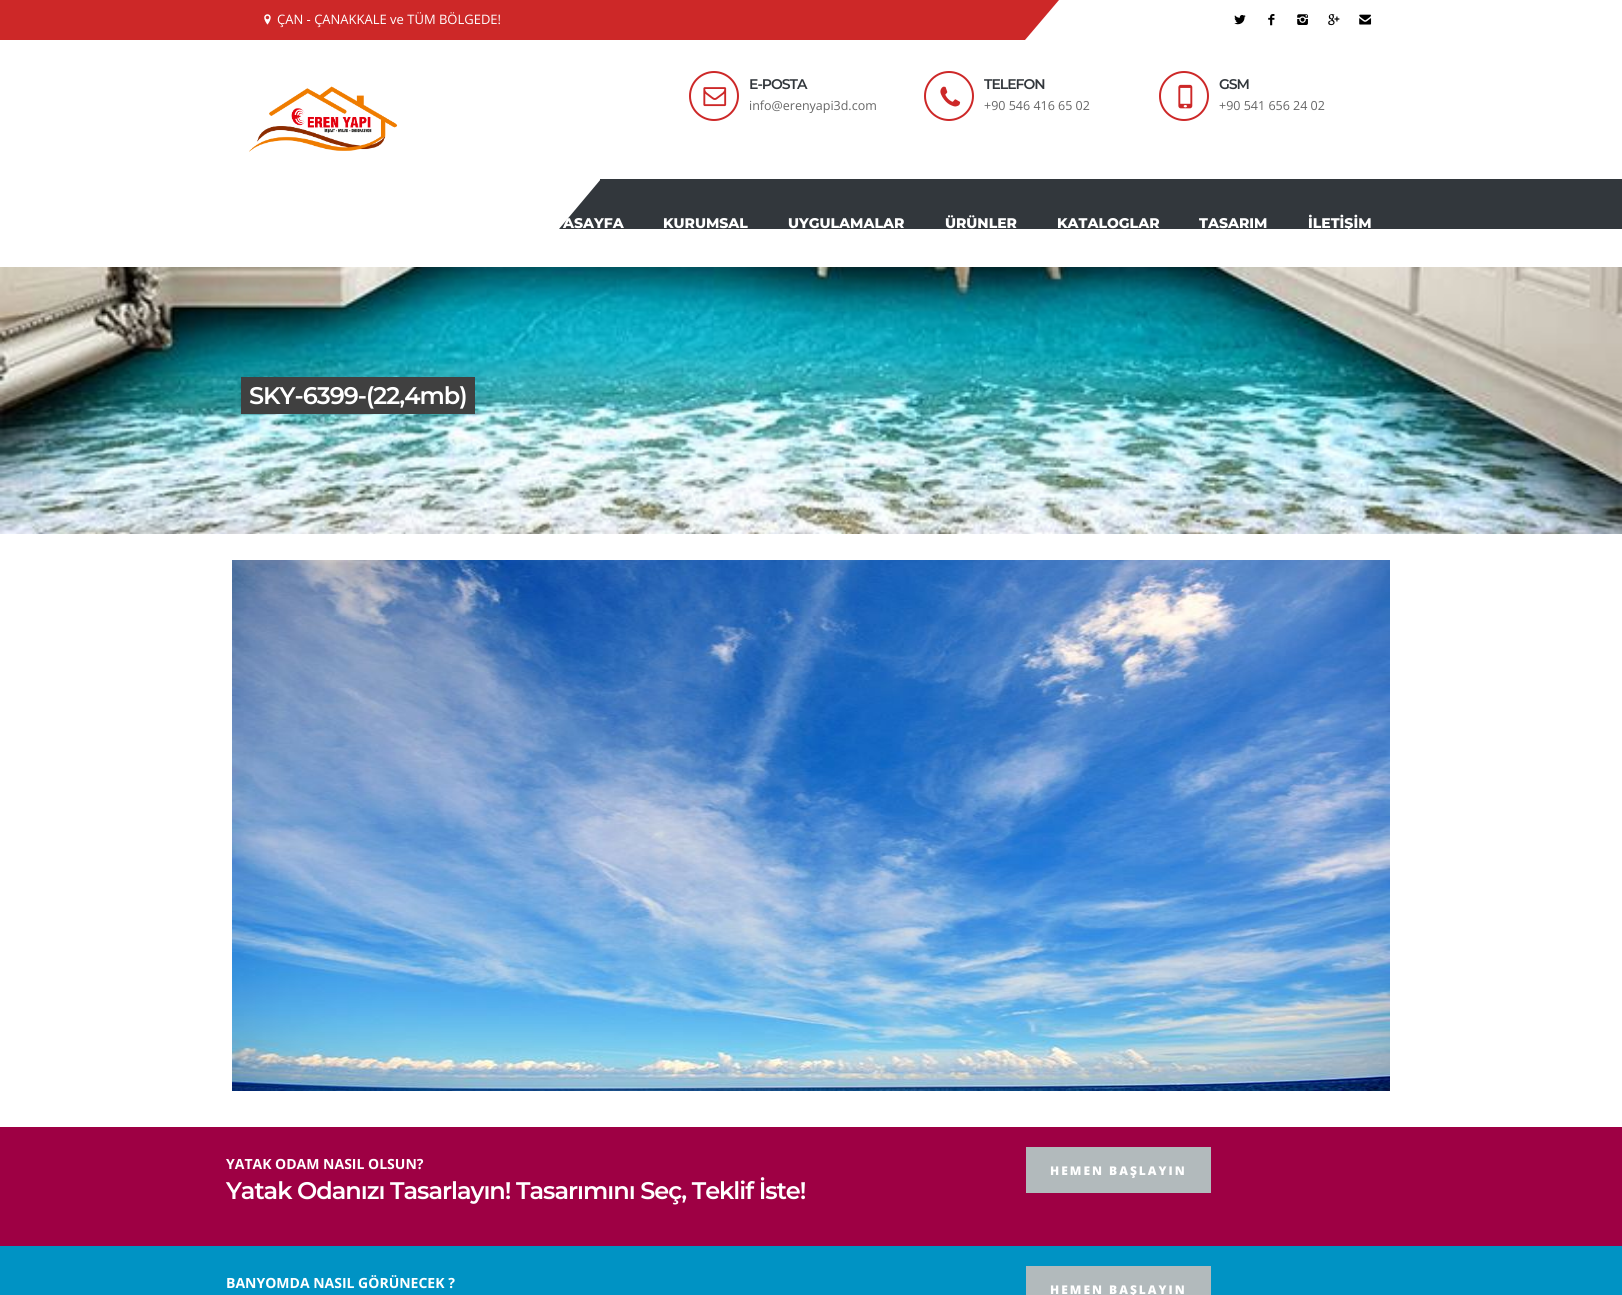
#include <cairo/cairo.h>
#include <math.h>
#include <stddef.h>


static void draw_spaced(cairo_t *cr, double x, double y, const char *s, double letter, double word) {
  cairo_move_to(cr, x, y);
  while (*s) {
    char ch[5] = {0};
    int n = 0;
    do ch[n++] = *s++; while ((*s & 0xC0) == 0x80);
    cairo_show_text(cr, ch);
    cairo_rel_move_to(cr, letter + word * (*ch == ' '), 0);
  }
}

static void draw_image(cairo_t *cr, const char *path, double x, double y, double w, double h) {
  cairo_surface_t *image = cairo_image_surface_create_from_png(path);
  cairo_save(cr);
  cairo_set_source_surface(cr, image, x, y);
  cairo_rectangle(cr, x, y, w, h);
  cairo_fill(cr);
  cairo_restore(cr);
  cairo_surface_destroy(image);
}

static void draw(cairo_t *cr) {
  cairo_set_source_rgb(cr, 1, 1, 1);
  cairo_paint(cr);
  cairo_set_source_rgb(cr, 205 / 255.0, 40 / 255.0, 40 / 255.0);
  cairo_rectangle(cr, 0, 0, 999, 40);
  cairo_fill(cr);
  cairo_new_path(cr);
  cairo_move_to(cr, 999, 0);
  cairo_line_to(cr, 1059, 0);
  cairo_line_to(cr, 1025, 40);
  cairo_line_to(cr, 965, 40);
  cairo_close_path(cr);
  cairo_fill(cr);
  draw_image(cr, "images/1.png", 264, 14, 7, 11);
  draw_image(cr, "images/2.png", 1234, 15, 12, 10);
  draw_image(cr, "images/3.png", 1268, 14, 7, 12);
  draw_image(cr, "images/4.png", 1297, 14, 11, 11);
  draw_image(cr, "images/5.png", 1328, 14, 12, 12);
  draw_image(cr, "images/6.png", 1359, 14, 13, 11);
  draw_image(cr, "images/7.png", 249, 86, 149, 66);
  cairo_arc(cr, 714, 96, 24, 0, 2 * M_PI);
  cairo_stroke(cr);
  draw_image(cr, "images/8.png", 703, 87, 24, 20);
  cairo_arc(cr, 949, 96, 24, 0, 2 * M_PI);
  cairo_stroke(cr);
  draw_image(cr, "images/9.png", 940, 86, 21, 21);
  cairo_arc(cr, 1184, 96, 24, 0, 2 * M_PI);
  cairo_stroke(cr);
  draw_image(cr, "images/10.png", 1178, 84, 15, 25);
  cairo_set_source_rgb(cr, 50 / 255.0, 55 / 255.0, 60 / 255.0);
  cairo_rectangle(cr, 600, 179, 1022, 50);
  cairo_fill(cr);
  cairo_new_path(cr);
  cairo_move_to(cr, 601, 179);
  cairo_line_to(cr, 661, 179);
  cairo_line_to(cr, 619, 229);
  cairo_line_to(cr, 559, 229);
  cairo_close_path(cr);
  cairo_fill(cr);
  draw_image(cr, "images/11.png", 0, 267, 1622, 267);
  cairo_set_source_rgb(cr, 64 / 255.0, 64 / 255.0, 64 / 255.0);
  cairo_rectangle(cr, 241, 377, 234, 37);
  cairo_fill(cr);
  draw_image(cr, "images/12.png", 232, 560, 1158, 531);
  cairo_set_source_rgb(cr, 158 / 255.0, 0, 68 / 255.0);
  cairo_rectangle(cr, 0, 1127, 1622, 119);
  cairo_fill(cr);
  cairo_set_source_rgb(cr, 178 / 255.0, 186 / 255.0, 188 / 255.0);
  cairo_rectangle(cr, 1026, 1147, 185, 46);
  cairo_fill(cr);
  cairo_set_source_rgb(cr, 0, 147 / 255.0, 196 / 255.0);
  cairo_rectangle(cr, 0, 1246, 1622, 49);
  cairo_fill(cr);
  cairo_set_source_rgb(cr, 178 / 255.0, 186 / 255.0, 188 / 255.0);
  cairo_rectangle(cr, 1026, 1266, 185, 29);
  cairo_fill(cr);
  cairo_select_font_face(cr, "Open Sans", CAIRO_FONT_SLANT_NORMAL, CAIRO_FONT_WEIGHT_NORMAL);
  cairo_set_font_size(cr, 13);
  cairo_set_source_rgb(cr, 1, 1, 1);
  cairo_move_to(cr, 277, 24);
  cairo_show_text(cr, "ÇAN - ÇANAKKALE ve TÜM BÖLGEDE!");
  cairo_select_font_face(cr, "Montserrat SemiBold", CAIRO_FONT_SLANT_NORMAL, CAIRO_FONT_WEIGHT_NORMAL);
  cairo_set_font_size(cr, 14);
  cairo_set_source_rgb(cr, 50 / 255.0, 55 / 255.0, 60 / 255.0);
  draw_spaced(cr, 749, 89, "E-POSTA", -1, 0);
  cairo_select_font_face(cr, "Open Sans", CAIRO_FONT_SLANT_NORMAL, CAIRO_FONT_WEIGHT_NORMAL);
  cairo_set_font_size(cr, 12.5);
  cairo_set_source_rgb(cr, 102 / 255.0, 102 / 255.0, 102 / 255.0);
  cairo_move_to(cr, 749, 110);
  cairo_show_text(cr, "info@erenyapi3d.com");
  cairo_select_font_face(cr, "Montserrat SemiBold", CAIRO_FONT_SLANT_NORMAL, CAIRO_FONT_WEIGHT_NORMAL);
  cairo_set_font_size(cr, 14);
  cairo_set_source_rgb(cr, 50 / 255.0, 55 / 255.0, 60 / 255.0);
  draw_spaced(cr, 984, 89, "TELEFON", -1, 0);
  cairo_select_font_face(cr, "Open Sans", CAIRO_FONT_SLANT_NORMAL, CAIRO_FONT_WEIGHT_NORMAL);
  cairo_set_font_size(cr, 12.5);
  cairo_set_source_rgb(cr, 102 / 255.0, 102 / 255.0, 102 / 255.0);
  cairo_move_to(cr, 984, 110);
  cairo_show_text(cr, "+90 546 416 65 02");
  cairo_select_font_face(cr, "Montserrat SemiBold", CAIRO_FONT_SLANT_NORMAL, CAIRO_FONT_WEIGHT_NORMAL);
  cairo_set_font_size(cr, 14);
  cairo_set_source_rgb(cr, 50 / 255.0, 55 / 255.0, 60 / 255.0);
  draw_spaced(cr, 1219, 89, "GSM", -1, 0);
  cairo_select_font_face(cr, "Open Sans", CAIRO_FONT_SLANT_NORMAL, CAIRO_FONT_WEIGHT_NORMAL);
  cairo_set_font_size(cr, 12.5);
  cairo_set_source_rgb(cr, 102 / 255.0, 102 / 255.0, 102 / 255.0);
  cairo_move_to(cr, 1219, 110);
  cairo_show_text(cr, "+90 541 656 24 02");
  cairo_select_font_face(cr, "Montserrat ExtraBold", CAIRO_FONT_SLANT_NORMAL, CAIRO_FONT_WEIGHT_NORMAL);
  cairo_set_font_size(cr, 14);
  cairo_set_source_rgb(cr, 1, 1, 1);
  cairo_move_to(cr, 563, 228);
  cairo_show_text(cr, "ASAYFA");
  cairo_move_to(cr, 663, 228);
  cairo_show_text(cr, "KURUMSAL");
  cairo_move_to(cr, 788, 228);
  cairo_show_text(cr, "UYGULAMALAR");
  cairo_move_to(cr, 945, 228);
  cairo_show_text(cr, "ÜRÜNLER");
  cairo_move_to(cr, 1057, 228);
  cairo_show_text(cr, "KATALOGLAR");
  cairo_move_to(cr, 1199, 228);
  cairo_show_text(cr, "TASARIM");
  cairo_move_to(cr, 1308, 228);
  cairo_show_text(cr, "İLETİŞİM");
  cairo_select_font_face(cr, "Montserrat SemiBold", CAIRO_FONT_SLANT_NORMAL, CAIRO_FONT_WEIGHT_NORMAL);
  cairo_set_font_size(cr, 24);
  draw_spaced(cr, 249, 404, "SKY-6399-(22,4mb)", -1, 0);
  cairo_select_font_face(cr, "Open Sans", CAIRO_FONT_SLANT_NORMAL, CAIRO_FONT_WEIGHT_BOLD);
  cairo_set_font_size(cr, 14);
  cairo_move_to(cr, 226, 1169);
  cairo_show_text(cr, "YATAK ODAM NASIL OLSUN?");
  cairo_select_font_face(cr, "Montserrat SemiBold", CAIRO_FONT_SLANT_NORMAL, CAIRO_FONT_WEIGHT_NORMAL);
  cairo_set_font_size(cr, 24);
  draw_spaced(cr, 226, 1199, "Yatak Odanızı Tasarlayın! Tasarımını Seç, Teklif İste!", -1, 0);
  cairo_select_font_face(cr, "Open Sans ExtraBold", CAIRO_FONT_SLANT_NORMAL, CAIRO_FONT_WEIGHT_NORMAL);
  cairo_set_font_size(cr, 12);
  draw_spaced(cr, 1050, 1175, "HEMEN BAŞLAYIN", 2, 0);
  cairo_select_font_face(cr, "Open Sans", CAIRO_FONT_SLANT_NORMAL, CAIRO_FONT_WEIGHT_BOLD);
  cairo_set_font_size(cr, 14);
  cairo_move_to(cr, 226, 1288);
  cairo_show_text(cr, "BANYOMDA NASIL GÖRÜNECEK ?");
  cairo_select_font_face(cr, "Open Sans ExtraBold", CAIRO_FONT_SLANT_NORMAL, CAIRO_FONT_WEIGHT_NORMAL);
  cairo_set_font_size(cr, 12);
  draw_spaced(cr, 1050, 1294, "HEMEN BAŞLAYIN", 2, 0);
}

int main(void) {
  cairo_surface_t *surface = cairo_image_surface_create(CAIRO_FORMAT_RGB24, 1622, 1295);
  cairo_t *cr = cairo_create(surface);
  cairo_font_options_t *options = cairo_font_options_create();
  cairo_font_options_set_hint_metrics(options, CAIRO_HINT_METRICS_OFF);
  cairo_font_options_set_hint_style(options, CAIRO_HINT_STYLE_NONE);
  cairo_set_font_options(cr, options);
  cairo_set_miter_limit(cr, 4);
  draw(cr);
  cairo_surface_write_to_png(surface, "out.png");
  cairo_font_options_destroy(options);
  cairo_destroy(cr);
  cairo_surface_destroy(surface);
  return 0;
}
